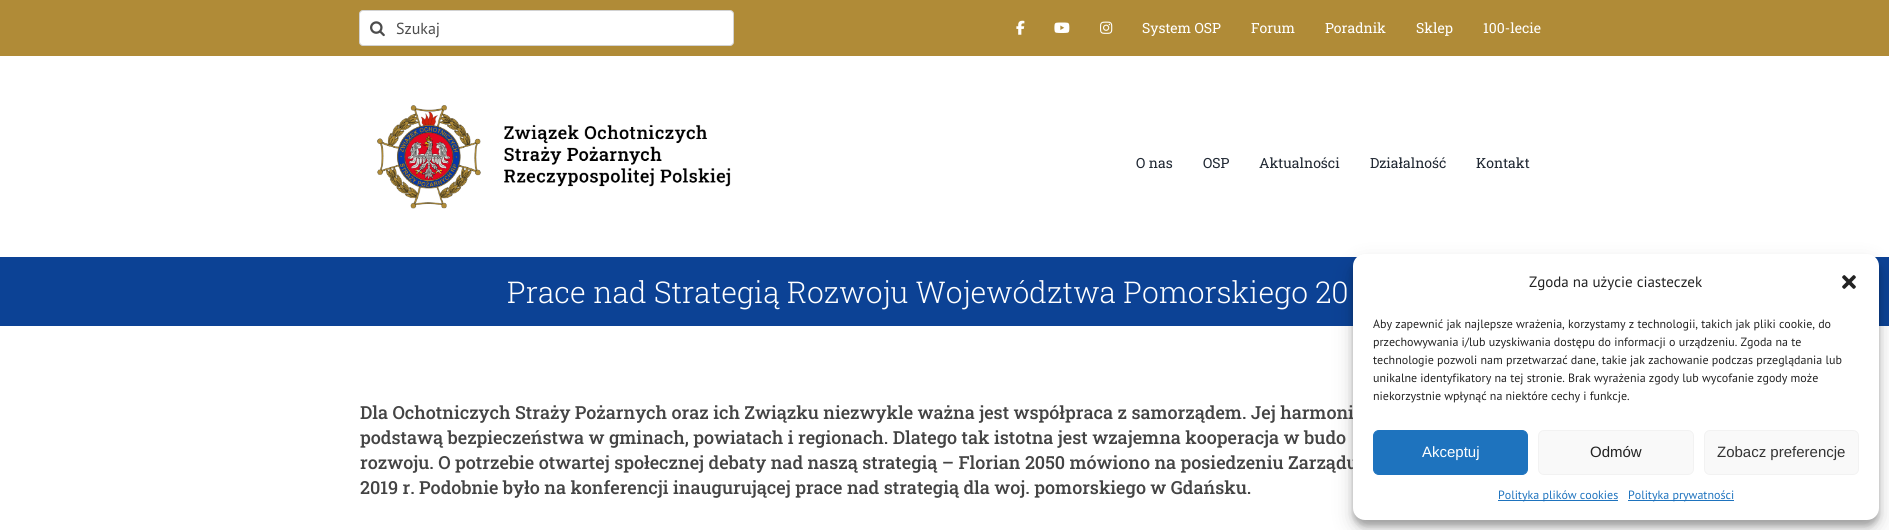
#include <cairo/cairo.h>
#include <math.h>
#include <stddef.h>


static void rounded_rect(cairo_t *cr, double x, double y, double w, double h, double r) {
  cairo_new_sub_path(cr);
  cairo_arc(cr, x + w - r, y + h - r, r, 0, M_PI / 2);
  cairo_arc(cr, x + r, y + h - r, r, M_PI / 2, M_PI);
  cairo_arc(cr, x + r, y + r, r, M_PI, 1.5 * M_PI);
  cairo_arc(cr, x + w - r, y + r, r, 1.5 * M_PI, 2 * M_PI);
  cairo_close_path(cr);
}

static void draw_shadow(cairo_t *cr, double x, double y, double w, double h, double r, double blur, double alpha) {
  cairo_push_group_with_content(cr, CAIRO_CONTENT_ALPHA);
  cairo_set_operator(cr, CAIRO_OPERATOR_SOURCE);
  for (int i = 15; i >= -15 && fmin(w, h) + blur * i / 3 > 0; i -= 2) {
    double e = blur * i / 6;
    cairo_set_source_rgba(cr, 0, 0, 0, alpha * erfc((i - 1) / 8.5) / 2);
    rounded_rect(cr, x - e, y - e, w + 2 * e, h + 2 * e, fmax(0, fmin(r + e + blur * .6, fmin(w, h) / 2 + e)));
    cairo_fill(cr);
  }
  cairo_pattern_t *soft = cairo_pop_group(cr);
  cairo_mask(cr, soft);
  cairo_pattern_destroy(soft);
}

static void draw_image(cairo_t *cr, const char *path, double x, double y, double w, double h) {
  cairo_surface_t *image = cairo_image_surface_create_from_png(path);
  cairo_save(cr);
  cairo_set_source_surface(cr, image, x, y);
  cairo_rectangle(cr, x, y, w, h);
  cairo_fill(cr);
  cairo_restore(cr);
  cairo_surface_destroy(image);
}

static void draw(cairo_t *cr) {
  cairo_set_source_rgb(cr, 1, 1, 1);
  cairo_paint(cr);
  cairo_set_source_rgb(cr, 176 / 255.0, 139 / 255.0, 55 / 255.0);
  cairo_rectangle(cr, 0, 0, 1889, 56);
  cairo_fill(cr);
  cairo_set_source_rgb(cr, 1, 1, 1);
  rounded_rect(cr, 359.5, 10.5, 374, 35, 3.5);
  cairo_fill_preserve(cr);
  cairo_set_source_rgb(cr, 210 / 255.0, 210 / 255.0, 210 / 255.0);
  cairo_set_line_width(cr, 1);
  cairo_stroke(cr);
  draw_image(cr, "images/1.png", 370, 21, 15, 16);
  draw_image(cr, "images/2.png", 1016, 20, 9, 15);
  draw_image(cr, "images/3.png", 1054, 22, 16, 11);
  draw_image(cr, "images/4.png", 1100, 21, 13, 13);
  draw_image(cr, "images/5.png", 377, 105, 354, 104);
  cairo_set_source_rgb(cr, 12 / 255.0, 66 / 255.0, 149 / 255.0);
  cairo_rectangle(cr, 0, 257, 1889, 69);
  cairo_fill(cr);
  cairo_set_source_rgb(cr, 0, 0, 0);
  draw_shadow(cr, 1353, 260, 526, 266, 12, 3, 0.23);
  draw_shadow(cr, 1353, 264, 526, 266, 12, 10, 0.19);
  cairo_select_font_face(cr, "PT Sans", CAIRO_FONT_SLANT_NORMAL, CAIRO_FONT_WEIGHT_NORMAL);
  cairo_set_font_size(cr, 16);
  cairo_set_source_rgb(cr, 76 / 255.0, 76 / 255.0, 76 / 255.0);
  cairo_move_to(cr, 396, 34);
  cairo_show_text(cr, "Szukaj");
  cairo_select_font_face(cr, "Roboto Slab", CAIRO_FONT_SLANT_NORMAL, CAIRO_FONT_WEIGHT_NORMAL);
  cairo_set_font_size(cr, 14);
  cairo_set_source_rgb(cr, 1, 1, 1);
  cairo_move_to(cr, 1142, 33);
  cairo_show_text(cr, "System OSP");
  cairo_move_to(cr, 1251, 33);
  cairo_show_text(cr, "Forum");
  cairo_move_to(cr, 1325, 33);
  cairo_show_text(cr, "Poradnik");
  cairo_move_to(cr, 1416, 33);
  cairo_show_text(cr, "Sklep");
  cairo_move_to(cr, 1483, 33);
  cairo_show_text(cr, "100-lecie");
  cairo_set_source_rgb(cr, 33 / 255.0, 41 / 255.0, 52 / 255.0);
  cairo_move_to(cr, 1136, 168);
  cairo_show_text(cr, "O nas");
  cairo_move_to(cr, 1203, 168);
  cairo_show_text(cr, "OSP");
  cairo_move_to(cr, 1259, 168);
  cairo_show_text(cr, "Aktualności");
  cairo_move_to(cr, 1370, 168);
  cairo_show_text(cr, "Działalność");
  cairo_move_to(cr, 1476, 168);
  cairo_show_text(cr, "Kontakt");
  cairo_select_font_face(cr, "Roboto Slab Light", CAIRO_FONT_SLANT_NORMAL, CAIRO_FONT_WEIGHT_NORMAL);
  cairo_set_font_size(cr, 30);
  cairo_set_source_rgb(cr, 1, 1, 1);
  cairo_move_to(cr, 507, 303);
  cairo_show_text(cr, "Prace nad Strategią Rozwoju Województwa Pomorskiego 20");
  cairo_select_font_face(cr, "Roboto Slab Medium", CAIRO_FONT_SLANT_NORMAL, CAIRO_FONT_WEIGHT_NORMAL);
  cairo_set_font_size(cr, 18);
  cairo_set_source_rgb(cr, 68 / 255.0, 68 / 255.0, 68 / 255.0);
  cairo_move_to(cr, 360, 419);
  cairo_show_text(cr, "Dla Ochotniczych Straży Pożarnych oraz ich Związku niezwykle ważna jest współpraca z samorządem. Jej harmoni");
  cairo_move_to(cr, 360, 444);
  cairo_show_text(cr, "podstawą bezpieczeństwa w gminach, powiatach i regionach. Dlatego tak istotna jest wzajemna kooperacja w budo");
  cairo_move_to(cr, 360, 469);
  cairo_show_text(cr, "rozwoju. O potrzebie otwartej społecznej debaty nad naszą strategią – Florian 2050 mówiono na posiedzeniu Zarządu");
  cairo_move_to(cr, 360, 494);
  cairo_show_text(cr, "2019 r. Podobnie było na konferencji inaugurującej prace nad strategią dla woj. pomorskiego w Gdańsku.");
  cairo_set_source_rgb(cr, 1, 1, 1);
  rounded_rect(cr, 1353, 254, 526, 266, 12);
  cairo_fill(cr);
  cairo_select_font_face(cr, "PT Sans", CAIRO_FONT_SLANT_NORMAL, CAIRO_FONT_WEIGHT_NORMAL);
  cairo_set_font_size(cr, 15);
  cairo_set_source_rgb(cr, 34 / 255.0, 34 / 255.0, 34 / 255.0);
  cairo_move_to(cr, 1529, 287);
  cairo_show_text(cr, "Zgoda na użycie ciasteczek");
  draw_image(cr, "images/6.png", 1842, 275, 14, 14);
  cairo_set_font_size(cr, 12);
  cairo_move_to(cr, 1373, 328);
  cairo_show_text(cr, "Aby zapewnić jak najlepsze wrażenia, korzystamy z technologii, takich jak pliki cookie, do");
  cairo_move_to(cr, 1373, 346);
  cairo_show_text(cr, "przechowywania i/lub uzyskiwania dostępu do informacji o urządzeniu. Zgoda na te");
  cairo_move_to(cr, 1373, 364);
  cairo_show_text(cr, "technologie pozwoli nam przetwarzać dane, takie jak zachowanie podczas przeglądania lub");
  cairo_move_to(cr, 1373, 382);
  cairo_show_text(cr, "unikalne identyfikatory na tej stronie. Brak wyrażenia zgody lub wycofanie zgody może");
  cairo_move_to(cr, 1373, 400);
  cairo_show_text(cr, "niekorzystnie wpłynąć na niektóre cechy i funkcje.");
  cairo_set_source_rgb(cr, 30 / 255.0, 115 / 255.0, 190 / 255.0);
  rounded_rect(cr, 1373.5, 430.5, 154, 44, 5.5);
  cairo_fill_preserve(cr);
  cairo_stroke(cr);
  cairo_select_font_face(cr, "Liberation Sans", CAIRO_FONT_SLANT_NORMAL, CAIRO_FONT_WEIGHT_NORMAL);
  cairo_set_font_size(cr, 15);
  cairo_set_source_rgb(cr, 1, 1, 1);
  cairo_move_to(cr, 1422, 457);
  cairo_show_text(cr, "Akceptuj");
  cairo_set_source_rgb(cr, 249 / 255.0, 249 / 255.0, 249 / 255.0);
  rounded_rect(cr, 1538.5, 430.5, 155, 44, 5.5);
  cairo_fill_preserve(cr);
  cairo_set_source_rgb(cr, 242 / 255.0, 242 / 255.0, 242 / 255.0);
  cairo_stroke(cr);
  cairo_set_source_rgb(cr, 34 / 255.0, 34 / 255.0, 34 / 255.0);
  cairo_move_to(cr, 1590, 457);
  cairo_show_text(cr, "Odmów");
  cairo_set_source_rgb(cr, 249 / 255.0, 249 / 255.0, 249 / 255.0);
  rounded_rect(cr, 1704.5, 430.5, 154, 44, 5.5);
  cairo_fill_preserve(cr);
  cairo_set_source_rgb(cr, 242 / 255.0, 242 / 255.0, 242 / 255.0);
  cairo_stroke(cr);
  cairo_set_source_rgb(cr, 51 / 255.0, 51 / 255.0, 51 / 255.0);
  cairo_move_to(cr, 1717, 457);
  cairo_show_text(cr, "Zobacz preferencje");
  cairo_set_source_rgb(cr, 30 / 255.0, 115 / 255.0, 190 / 255.0);
  cairo_rectangle(cr, 1498, 500, 120, 1);
  cairo_fill(cr);
  cairo_select_font_face(cr, "PT Sans", CAIRO_FONT_SLANT_NORMAL, CAIRO_FONT_WEIGHT_NORMAL);
  cairo_set_font_size(cr, 12);
  cairo_move_to(cr, 1498, 499);
  cairo_show_text(cr, "Polityka plików cookies");
  cairo_rectangle(cr, 1628, 500, 106, 1);
  cairo_fill(cr);
  cairo_move_to(cr, 1628, 499);
  cairo_show_text(cr, "Polityka prywatności");
}

int main(void) {
  cairo_surface_t *surface = cairo_image_surface_create(CAIRO_FORMAT_RGB24, 1889, 530);
  cairo_t *cr = cairo_create(surface);
  cairo_font_options_t *options = cairo_font_options_create();
  cairo_font_options_set_hint_metrics(options, CAIRO_HINT_METRICS_OFF);
  cairo_font_options_set_hint_style(options, CAIRO_HINT_STYLE_NONE);
  cairo_set_font_options(cr, options);
  cairo_set_miter_limit(cr, 4);
  draw(cr);
  cairo_surface_write_to_png(surface, "out.png");
  cairo_font_options_destroy(options);
  cairo_destroy(cr);
  cairo_surface_destroy(surface);
  return 0;
}
